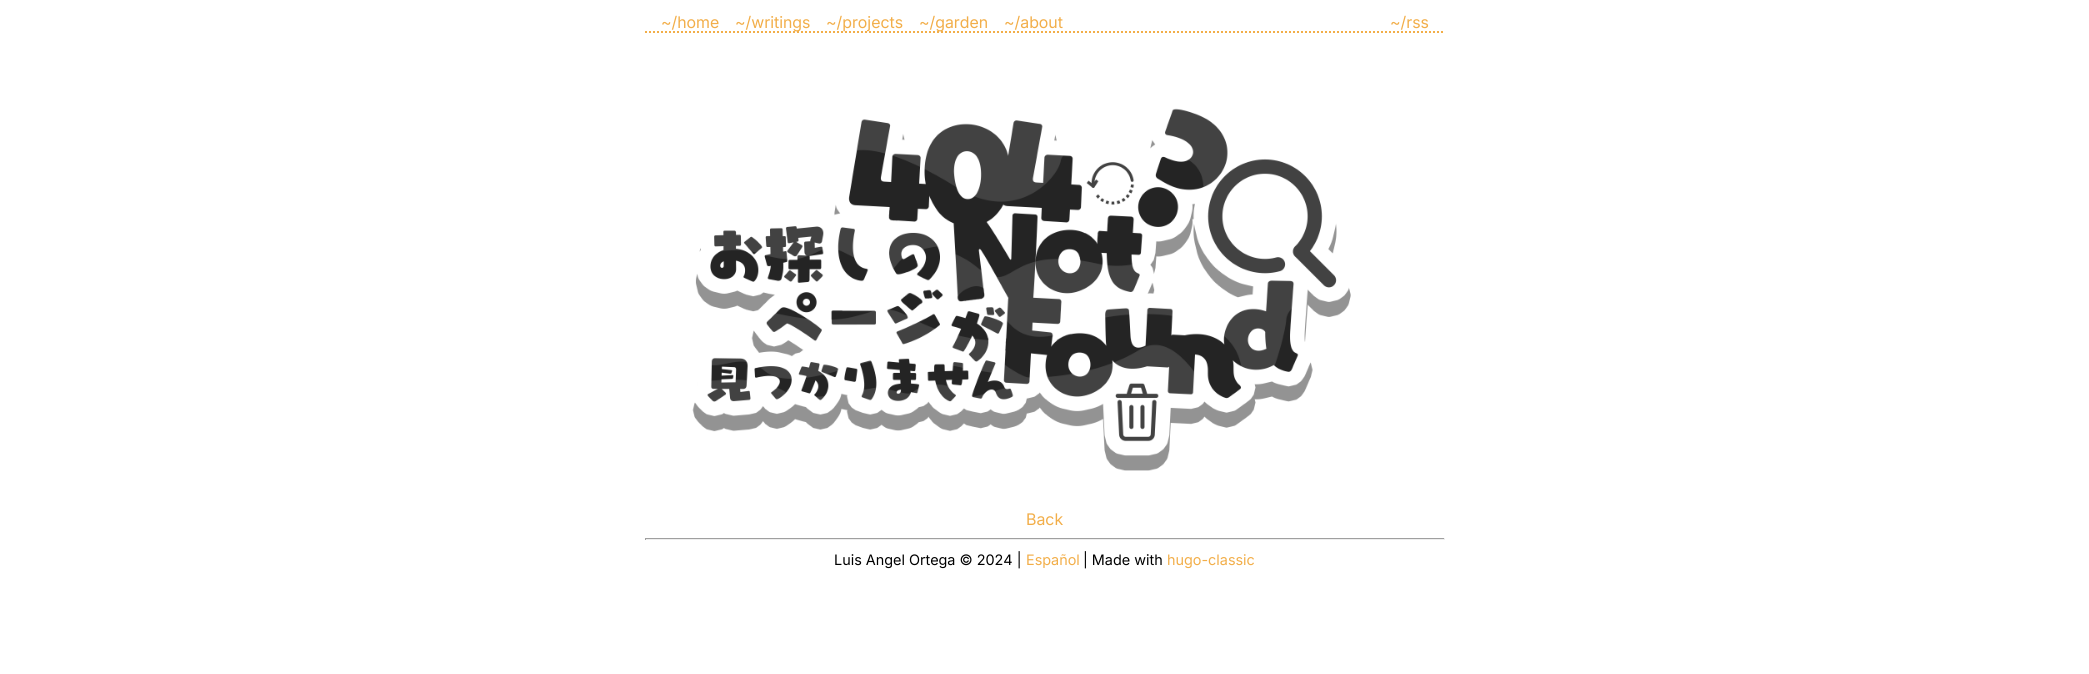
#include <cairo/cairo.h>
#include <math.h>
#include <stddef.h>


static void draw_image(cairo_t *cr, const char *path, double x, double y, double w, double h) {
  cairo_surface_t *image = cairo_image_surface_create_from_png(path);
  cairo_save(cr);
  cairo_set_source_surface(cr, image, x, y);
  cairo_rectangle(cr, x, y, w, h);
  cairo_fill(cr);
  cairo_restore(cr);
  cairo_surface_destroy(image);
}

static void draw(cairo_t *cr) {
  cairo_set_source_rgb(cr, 1, 1, 1);
  cairo_paint(cr);
  cairo_new_path(cr);
  cairo_move_to(cr, 645, 32);
  cairo_line_to(cr, 1445, 32);
  cairo_set_source_rgb(cr, 242 / 255.0, 174 / 255.0, 73 / 255.0);
  cairo_set_dash(cr, (double[]){2, 2}, 2, 0);
  cairo_stroke(cr);
  draw_image(cr, "images/1.png", 692, 108, 659, 363);
  cairo_set_source_rgb(cr, 159 / 255.0, 159 / 255.0, 159 / 255.0);
  cairo_rectangle(cr, 645, 538, 800, 1);
  cairo_fill(cr);
  cairo_set_source_rgb(cr, 238 / 255.0, 238 / 255.0, 238 / 255.0);
  cairo_rectangle(cr, 1444, 538, 1, 2);
  cairo_fill(cr);
  cairo_rectangle(cr, 645, 539, 800, 1);
  cairo_fill(cr);
  cairo_set_source_rgb(cr, 159 / 255.0, 159 / 255.0, 159 / 255.0);
  cairo_rectangle(cr, 645, 538, 1, 2);
  cairo_fill(cr);
  cairo_select_font_face(cr, "Inter", CAIRO_FONT_SLANT_NORMAL, CAIRO_FONT_WEIGHT_NORMAL);
  cairo_set_font_size(cr, 16);
  cairo_set_source_rgb(cr, 242 / 255.0, 174 / 255.0, 73 / 255.0);
  cairo_move_to(cr, 661, 28);
  cairo_show_text(cr, "~/home");
  cairo_move_to(cr, 735, 28);
  cairo_show_text(cr, "~/writings");
  cairo_move_to(cr, 826, 28);
  cairo_show_text(cr, "~/projects");
  cairo_move_to(cr, 919, 28);
  cairo_show_text(cr, "~/garden");
  cairo_move_to(cr, 1004, 28);
  cairo_show_text(cr, "~/about");
  cairo_move_to(cr, 1390, 28);
  cairo_show_text(cr, "~/rss");
  cairo_move_to(cr, 1026, 525);
  cairo_show_text(cr, "Back");
  cairo_select_font_face(cr, "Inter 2", CAIRO_FONT_SLANT_NORMAL, CAIRO_FONT_WEIGHT_NORMAL);
  cairo_set_font_size(cr, 14.4);
  cairo_set_source_rgb(cr, 0, 0, 0);
  cairo_move_to(cr, 834, 565);
  cairo_show_text(cr, "Luis Angel Ortega © 2024 |");
  cairo_set_source_rgb(cr, 242 / 255.0, 174 / 255.0, 73 / 255.0);
  cairo_move_to(cr, 1026, 565);
  cairo_show_text(cr, "Español");
  cairo_set_source_rgb(cr, 0, 0, 0);
  cairo_move_to(cr, 1083, 565);
  cairo_show_text(cr, "| Made with");
  cairo_set_source_rgb(cr, 242 / 255.0, 174 / 255.0, 73 / 255.0);
  cairo_move_to(cr, 1167, 565);
  cairo_show_text(cr, "hugo-classic");
}

int main(void) {
  cairo_surface_t *surface = cairo_image_surface_create(CAIRO_FORMAT_RGB24, 2089, 674);
  cairo_t *cr = cairo_create(surface);
  cairo_font_options_t *options = cairo_font_options_create();
  cairo_font_options_set_hint_metrics(options, CAIRO_HINT_METRICS_OFF);
  cairo_font_options_set_hint_style(options, CAIRO_HINT_STYLE_NONE);
  cairo_set_font_options(cr, options);
  cairo_set_miter_limit(cr, 4);
  draw(cr);
  cairo_surface_write_to_png(surface, "out.png");
  cairo_font_options_destroy(options);
  cairo_destroy(cr);
  cairo_surface_destroy(surface);
  return 0;
}
